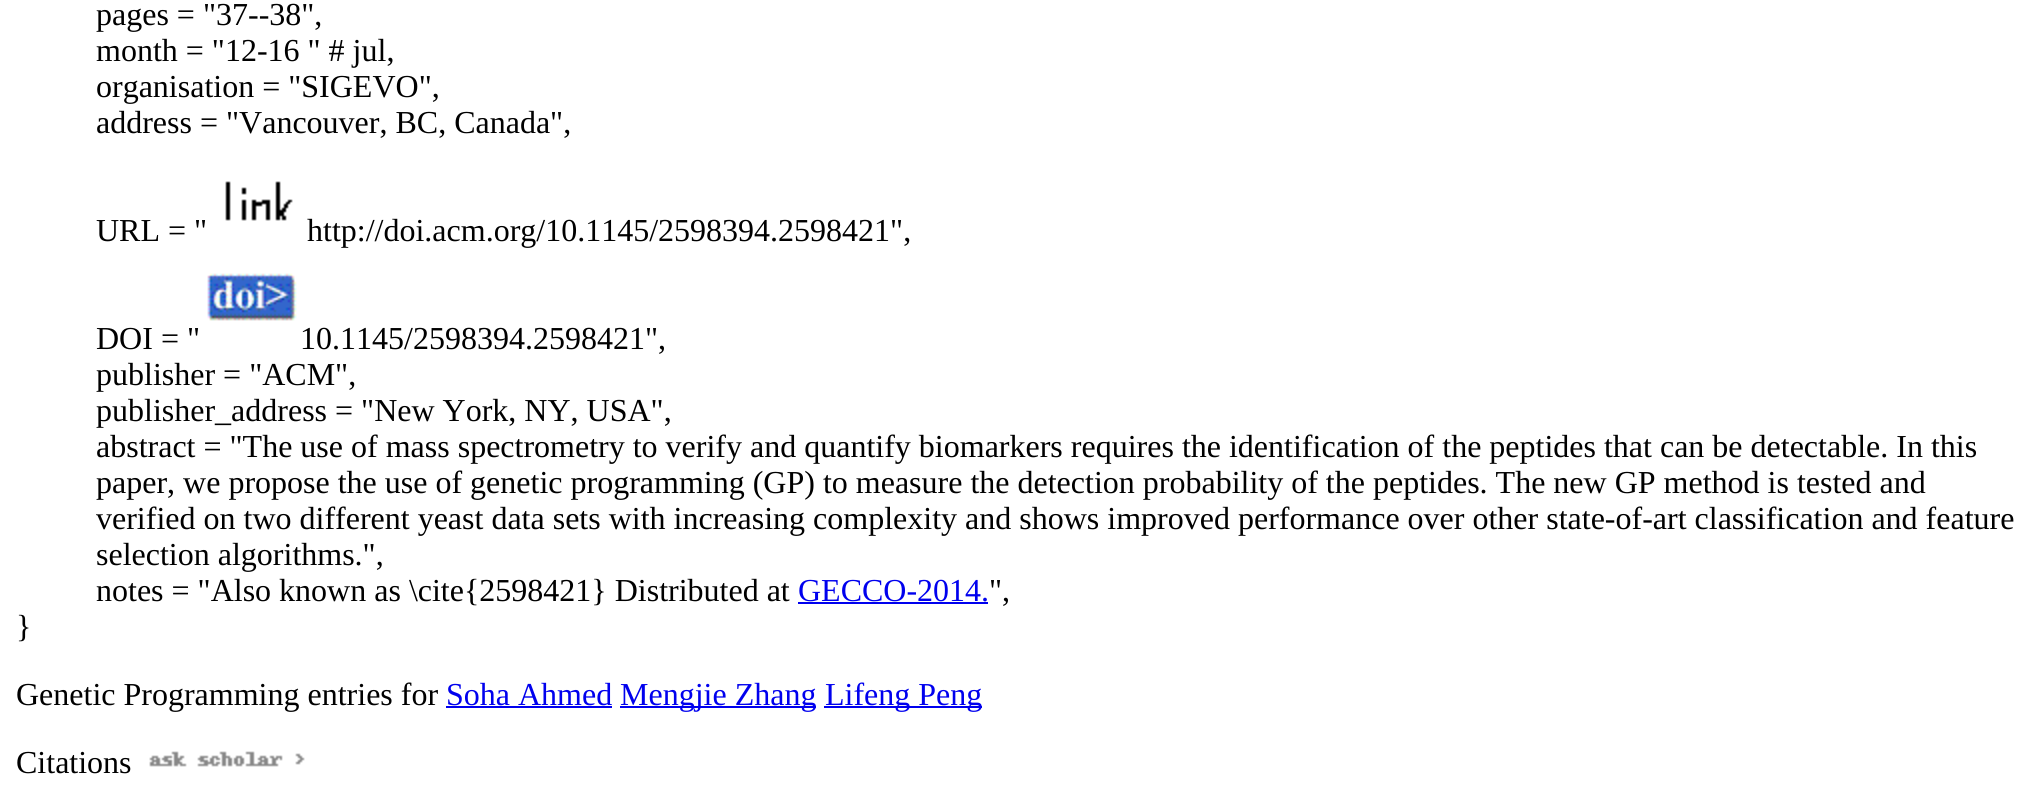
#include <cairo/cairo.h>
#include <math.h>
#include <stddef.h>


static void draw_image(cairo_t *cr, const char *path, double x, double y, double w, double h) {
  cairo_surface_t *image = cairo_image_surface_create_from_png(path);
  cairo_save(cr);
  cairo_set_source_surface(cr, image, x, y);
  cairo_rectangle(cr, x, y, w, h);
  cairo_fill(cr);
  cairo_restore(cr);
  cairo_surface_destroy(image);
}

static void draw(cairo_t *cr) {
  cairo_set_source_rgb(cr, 1, 1, 1);
  cairo_paint(cr);
  draw_image(cr, "images/1.png", 225, 181, 68, 40);
  draw_image(cr, "images/2.png", 207, 273, 90, 48);
  cairo_set_source_rgb(cr, 0, 0, 238 / 255.0);
  cairo_rectangle(cr, 798, 602, 190, 2);
  cairo_fill(cr);
  cairo_rectangle(cr, 446, 706, 166, 2);
  cairo_fill(cr);
  cairo_rectangle(cr, 620, 706, 196, 2);
  cairo_fill(cr);
  cairo_rectangle(cr, 824, 706, 158, 2);
  cairo_fill(cr);
  draw_image(cr, "images/3.png", 149, 751, 156, 16);
  cairo_select_font_face(cr, "Liberation Serif", CAIRO_FONT_SLANT_NORMAL, CAIRO_FONT_WEIGHT_NORMAL);
  cairo_set_font_size(cr, 32);
  cairo_set_source_rgb(cr, 0, 0, 0);
  cairo_move_to(cr, 96, 25);
  cairo_show_text(cr, "pages = \"37--38\",");
  cairo_move_to(cr, 96, 61);
  cairo_show_text(cr, "month = \"12-16 \" # jul,");
  cairo_move_to(cr, 96, 97);
  cairo_show_text(cr, "organisation = \"SIGEVO\",");
  cairo_move_to(cr, 96, 133);
  cairo_show_text(cr, "address = \"Vancouver, BC, Canada\",");
  cairo_move_to(cr, 96, 241);
  cairo_show_text(cr, "URL = \"");
  cairo_move_to(cr, 307, 241);
  cairo_show_text(cr, "http://doi.acm.org/10.1145/2598394.2598421\",");
  cairo_move_to(cr, 96, 349);
  cairo_show_text(cr, "DOI = \"");
  cairo_move_to(cr, 300, 349);
  cairo_show_text(cr, "10.1145/2598394.2598421\",");
  cairo_move_to(cr, 96, 385);
  cairo_show_text(cr, "publisher = \"ACM\",");
  cairo_move_to(cr, 96, 421);
  cairo_show_text(cr, "publisher_address = \"New York, NY, USA\",");
  cairo_move_to(cr, 96, 457);
  cairo_show_text(cr, "abstract = \"The use of mass spectrometry to verify and quantify biomarkers requires the identification of the peptides that can be detectable. In this");
  cairo_move_to(cr, 96, 493);
  cairo_show_text(cr, "paper, we propose the use of genetic programming (GP) to measure the detection probability of the peptides. The new GP method is tested and");
  cairo_move_to(cr, 96, 529);
  cairo_show_text(cr, "verified on two different yeast data sets with increasing complexity and shows improved performance over other state-of-art classification and feature");
  cairo_move_to(cr, 96, 565);
  cairo_show_text(cr, "selection algorithms.\",");
  cairo_move_to(cr, 96, 601);
  cairo_show_text(cr, "notes = \"Also known as \\cite{2598421} Distributed at");
  cairo_set_source_rgb(cr, 0, 0, 238 / 255.0);
  cairo_move_to(cr, 798, 601);
  cairo_show_text(cr, "GECCO-2014.");
  cairo_set_source_rgb(cr, 0, 0, 0);
  cairo_move_to(cr, 989, 601);
  cairo_show_text(cr, "\",");
  cairo_move_to(cr, 16, 637);
  cairo_show_text(cr, "}");
  cairo_move_to(cr, 16, 705);
  cairo_show_text(cr, "Genetic Programming entries for");
  cairo_set_source_rgb(cr, 0, 0, 238 / 255.0);
  cairo_move_to(cr, 446, 705);
  cairo_show_text(cr, "Soha Ahmed");
  cairo_move_to(cr, 620, 705);
  cairo_show_text(cr, "Mengjie Zhang");
  cairo_move_to(cr, 825, 705);
  cairo_show_text(cr, "Lifeng Peng");
  cairo_set_source_rgb(cr, 0, 0, 0);
  cairo_move_to(cr, 16, 773);
  cairo_show_text(cr, "Citations");
}

int main(void) {
  cairo_surface_t *surface = cairo_image_surface_create(CAIRO_FORMAT_RGB24, 2038, 811);
  cairo_t *cr = cairo_create(surface);
  cairo_font_options_t *options = cairo_font_options_create();
  cairo_font_options_set_hint_metrics(options, CAIRO_HINT_METRICS_OFF);
  cairo_font_options_set_hint_style(options, CAIRO_HINT_STYLE_NONE);
  cairo_set_font_options(cr, options);
  cairo_set_miter_limit(cr, 4);
  draw(cr);
  cairo_surface_write_to_png(surface, "out.png");
  cairo_font_options_destroy(options);
  cairo_destroy(cr);
  cairo_surface_destroy(surface);
  return 0;
}
